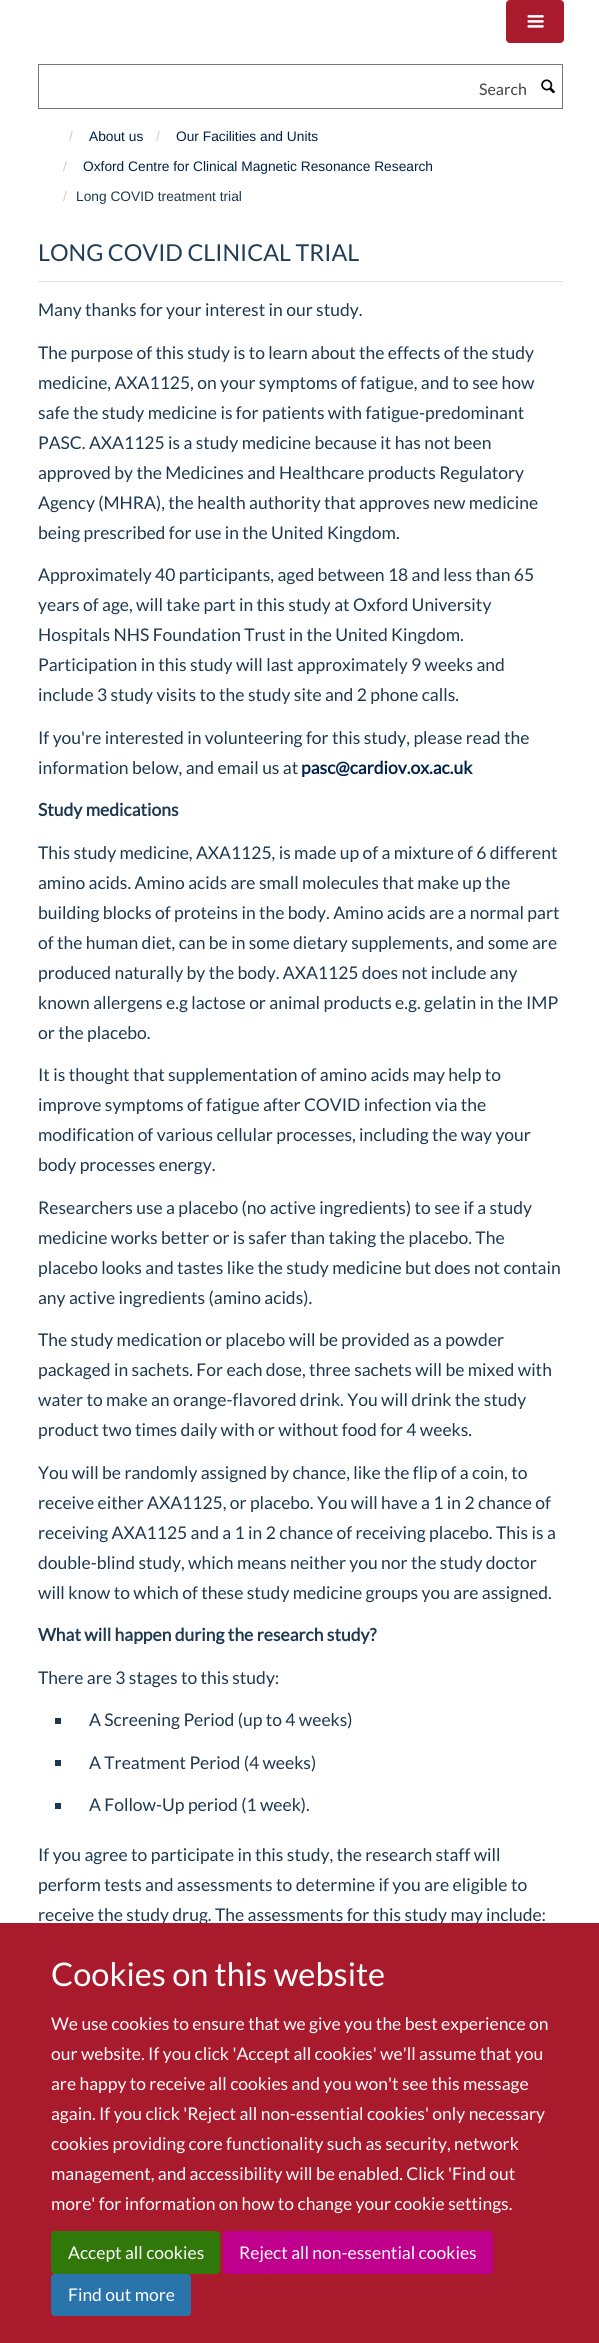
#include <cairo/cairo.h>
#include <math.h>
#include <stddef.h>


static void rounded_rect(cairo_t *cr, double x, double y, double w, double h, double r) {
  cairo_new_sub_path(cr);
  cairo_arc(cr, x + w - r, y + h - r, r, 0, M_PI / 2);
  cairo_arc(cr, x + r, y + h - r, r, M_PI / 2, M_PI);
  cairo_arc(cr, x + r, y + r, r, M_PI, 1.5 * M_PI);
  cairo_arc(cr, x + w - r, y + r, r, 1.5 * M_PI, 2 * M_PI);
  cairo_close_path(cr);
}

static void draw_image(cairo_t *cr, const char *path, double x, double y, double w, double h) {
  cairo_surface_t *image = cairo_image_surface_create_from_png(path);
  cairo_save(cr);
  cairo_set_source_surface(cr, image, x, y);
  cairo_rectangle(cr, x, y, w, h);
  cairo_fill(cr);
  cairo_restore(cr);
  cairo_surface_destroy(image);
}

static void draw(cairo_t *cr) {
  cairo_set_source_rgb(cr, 1, 1, 1);
  cairo_paint(cr);
  cairo_set_source_rgb(cr, 170 / 255.0, 26 / 255.0, 45 / 255.0);
  rounded_rect(cr, 506.5, 0.5, 57, 42, 3.5);
  cairo_fill_preserve(cr);
  cairo_set_line_width(cr, 1);
  cairo_stroke(cr);
  draw_image(cr, "images/1.png", 527, 15, 17, 13);
  cairo_rectangle(cr, 38.5, 64.5, 524, 44);
  cairo_set_source_rgb(cr, 119 / 255.0, 119 / 255.0, 119 / 255.0);
  cairo_stroke(cr);
  draw_image(cr, "images/2.png", 541, 79, 14, 15);
  cairo_set_source_rgb(cr, 223 / 255.0, 225 / 255.0, 228 / 255.0);
  cairo_rectangle(cr, 38, 281, 525, 1);
  cairo_fill(cr);
  cairo_set_source_rgb(cr, 29 / 255.0, 56 / 255.0, 80 / 255.0);
  cairo_rectangle(cr, 55, 1718, 6, 6);
  cairo_fill(cr);
  cairo_rectangle(cr, 55, 1760, 6, 6);
  cairo_fill(cr);
  cairo_rectangle(cr, 55, 1803, 6, 6);
  cairo_fill(cr);
  cairo_select_font_face(cr, "Lato", CAIRO_FONT_SLANT_NORMAL, CAIRO_FONT_WEIGHT_NORMAL);
  cairo_set_font_size(cr, 16);
  cairo_set_source_rgb(cr, 68 / 255.0, 68 / 255.0, 68 / 255.0);
  cairo_move_to(cr, 479, 95);
  cairo_show_text(cr, "Search");
  cairo_select_font_face(cr, "Liberation Sans", CAIRO_FONT_SLANT_NORMAL, CAIRO_FONT_WEIGHT_NORMAL);
  cairo_set_font_size(cr, 13.75);
  cairo_set_source_rgb(cr, 204 / 255.0, 204 / 255.0, 204 / 255.0);
  cairo_move_to(cr, 69, 141);
  cairo_show_text(cr, "/");
  cairo_set_source_rgb(cr, 0, 33 / 255.0, 71 / 255.0);
  cairo_move_to(cr, 89, 141);
  cairo_show_text(cr, "About us");
  cairo_set_source_rgb(cr, 204 / 255.0, 204 / 255.0, 204 / 255.0);
  cairo_move_to(cr, 156, 141);
  cairo_show_text(cr, "/");
  cairo_set_source_rgb(cr, 0, 33 / 255.0, 71 / 255.0);
  cairo_move_to(cr, 176, 141);
  cairo_show_text(cr, "Our Facilities and Units");
  cairo_set_source_rgb(cr, 204 / 255.0, 204 / 255.0, 204 / 255.0);
  cairo_move_to(cr, 63, 171);
  cairo_show_text(cr, "/");
  cairo_set_source_rgb(cr, 0, 33 / 255.0, 71 / 255.0);
  cairo_move_to(cr, 83, 171);
  cairo_show_text(cr, "Oxford Centre for Clinical Magnetic Resonance Research");
  cairo_set_source_rgb(cr, 204 / 255.0, 204 / 255.0, 204 / 255.0);
  cairo_move_to(cr, 63, 201);
  cairo_show_text(cr, "/");
  cairo_set_source_rgb(cr, 29 / 255.0, 56 / 255.0, 80 / 255.0);
  cairo_move_to(cr, 76, 201);
  cairo_show_text(cr, "Long COVID treatment trial");
  cairo_select_font_face(cr, "Lato", CAIRO_FONT_SLANT_NORMAL, CAIRO_FONT_WEIGHT_NORMAL);
  cairo_set_font_size(cr, 23.3);
  cairo_set_source_rgb(cr, 32 / 255.0, 62 / 255.0, 88 / 255.0);
  cairo_move_to(cr, 38, 261);
  cairo_show_text(cr, "LONG COVID CLINICAL TRIAL");
  cairo_set_font_size(cr, 17.5);
  cairo_set_source_rgb(cr, 29 / 255.0, 56 / 255.0, 80 / 255.0);
  cairo_move_to(cr, 38, 316);
  cairo_show_text(cr, "Many thanks for your interest in our study.");
  cairo_move_to(cr, 38, 359);
  cairo_show_text(cr, "The purpose of this study is to learn about the effects of the study");
  cairo_move_to(cr, 38, 389);
  cairo_show_text(cr, "medicine, AXA1125, on your symptoms of fatigue, and to see how");
  cairo_move_to(cr, 38, 419);
  cairo_show_text(cr, "safe the study medicine is for patients with fatigue-predominant");
  cairo_move_to(cr, 38, 449);
  cairo_show_text(cr, "PASC. AXA1125 is a study medicine because it has not been");
  cairo_move_to(cr, 38, 479);
  cairo_show_text(cr, "approved by the Medicines and Healthcare products Regulatory");
  cairo_move_to(cr, 38, 509);
  cairo_show_text(cr, "Agency (MHRA), the health authority that approves new medicine");
  cairo_move_to(cr, 38, 539);
  cairo_show_text(cr, "being prescribed for use in the United Kingdom.");
  cairo_move_to(cr, 38, 581);
  cairo_show_text(cr, "Approximately 40 participants, aged between 18 and less than 65");
  cairo_move_to(cr, 38, 611);
  cairo_show_text(cr, "years of age, will take part in this study at Oxford University");
  cairo_move_to(cr, 38, 641);
  cairo_show_text(cr, "Hospitals NHS Foundation Trust in the United Kingdom.");
  cairo_move_to(cr, 38, 671);
  cairo_show_text(cr, "Participation in this study will last approximately 9 weeks and");
  cairo_move_to(cr, 38, 701);
  cairo_show_text(cr, "include 3 study visits to the study site and 2 phone calls.");
  cairo_move_to(cr, 38, 744);
  cairo_show_text(cr, "If you're interested in volunteering for this study, please read the");
  cairo_move_to(cr, 38, 774);
  cairo_show_text(cr, "information below, and email us at");
  cairo_select_font_face(cr, "Lato", CAIRO_FONT_SLANT_NORMAL, CAIRO_FONT_WEIGHT_BOLD);
  cairo_set_source_rgb(cr, 0, 33 / 255.0, 71 / 255.0);
  cairo_move_to(cr, 301, 774);
  cairo_show_text(cr, "pasc@cardiov.ox.ac.uk");
  cairo_set_source_rgb(cr, 29 / 255.0, 56 / 255.0, 80 / 255.0);
  cairo_move_to(cr, 38, 816);
  cairo_show_text(cr, "Study medications");
  cairo_select_font_face(cr, "Lato", CAIRO_FONT_SLANT_NORMAL, CAIRO_FONT_WEIGHT_NORMAL);
  cairo_move_to(cr, 38, 859);
  cairo_show_text(cr, "This study medicine, AXA1125, is made up of a mixture of 6 different");
  cairo_move_to(cr, 38, 889);
  cairo_show_text(cr, "amino acids. Amino acids are small molecules that make up the");
  cairo_move_to(cr, 38, 919);
  cairo_show_text(cr, "building blocks of proteins in the body. Amino acids are a normal part");
  cairo_move_to(cr, 38, 949);
  cairo_show_text(cr, "of the human diet, can be in some dietary supplements, and some are");
  cairo_move_to(cr, 38, 979);
  cairo_show_text(cr, "produced naturally by the body. AXA1125 does not include any");
  cairo_move_to(cr, 38, 1009);
  cairo_show_text(cr, "known allergens e.g lactose or animal products e.g. gelatin in the IMP");
  cairo_move_to(cr, 38, 1039);
  cairo_show_text(cr, "or the placebo.");
  cairo_move_to(cr, 38, 1081);
  cairo_show_text(cr, "It is thought that supplementation of amino acids may help to");
  cairo_move_to(cr, 38, 1111);
  cairo_show_text(cr, "improve symptoms of fatigue after COVID infection via the");
  cairo_move_to(cr, 38, 1141);
  cairo_show_text(cr, "modification of various cellular processes, including the way your");
  cairo_move_to(cr, 38, 1171);
  cairo_show_text(cr, "body processes energy.");
  cairo_move_to(cr, 38, 1214);
  cairo_show_text(cr, "Researchers use a placebo (no active ingredients) to see if a study");
  cairo_move_to(cr, 38, 1244);
  cairo_show_text(cr, "medicine works better or is safer than taking the placebo. The");
  cairo_move_to(cr, 38, 1274);
  cairo_show_text(cr, "placebo looks and tastes like the study medicine but does not contain");
  cairo_move_to(cr, 38, 1304);
  cairo_show_text(cr, "any active ingredients (amino acids).");
  cairo_move_to(cr, 38, 1346);
  cairo_show_text(cr, "The study medication or placebo will be provided as a powder");
  cairo_move_to(cr, 38, 1376);
  cairo_show_text(cr, "packaged in sachets. For each dose, three sachets will be mixed with");
  cairo_move_to(cr, 38, 1406);
  cairo_show_text(cr, "water to make an orange-flavored drink. You will drink the study");
  cairo_move_to(cr, 38, 1436);
  cairo_show_text(cr, "product two times daily with or without food for 4 weeks.");
  cairo_move_to(cr, 38, 1479);
  cairo_show_text(cr, "You will be randomly assigned by chance, like the flip of a coin, to");
  cairo_move_to(cr, 38, 1509);
  cairo_show_text(cr, "receive either AXA1125, or placebo. You will have a 1 in 2 chance of");
  cairo_move_to(cr, 38, 1539);
  cairo_show_text(cr, "receiving AXA1125 and a 1 in 2 chance of receiving placebo. This is a");
  cairo_move_to(cr, 38, 1569);
  cairo_show_text(cr, "double-blind study, which means neither you nor the study doctor");
  cairo_move_to(cr, 38, 1599);
  cairo_show_text(cr, "will know to which of these study medicine groups you are assigned.");
  cairo_select_font_face(cr, "Lato", CAIRO_FONT_SLANT_NORMAL, CAIRO_FONT_WEIGHT_BOLD);
  cairo_move_to(cr, 38, 1641);
  cairo_show_text(cr, "What will happen during the research study?");
  cairo_select_font_face(cr, "Lato", CAIRO_FONT_SLANT_NORMAL, CAIRO_FONT_WEIGHT_NORMAL);
  cairo_move_to(cr, 38, 1684);
  cairo_show_text(cr, "There are 3 stages to this study:");
  cairo_move_to(cr, 89, 1726);
  cairo_show_text(cr, "A Screening Period (up to 4 weeks)");
  cairo_move_to(cr, 89, 1769);
  cairo_show_text(cr, "A Treatment Period (4 weeks)");
  cairo_move_to(cr, 89, 1811);
  cairo_show_text(cr, "A Follow-Up period (1 week).");
  cairo_move_to(cr, 38, 1861);
  cairo_show_text(cr, "If you agree to participate in this study, the research staff will");
  cairo_move_to(cr, 38, 1891);
  cairo_show_text(cr, "perform tests and assessments to determine if you are eligible to");
  cairo_move_to(cr, 38, 1921);
  cairo_show_text(cr, "receive the study drug. The assessments for this study may include:");
  cairo_set_source_rgb(cr, 170 / 255.0, 26 / 255.0, 45 / 255.0);
  cairo_rectangle(cr, 0, 1923, 599, 420);
  cairo_fill(cr);
  cairo_set_font_size(cr, 32.5);
  cairo_set_source_rgb(cr, 1, 1, 1);
  cairo_move_to(cr, 51, 1986);
  cairo_show_text(cr, "Cookies on this website");
  cairo_set_font_size(cr, 17.5);
  cairo_move_to(cr, 51, 2030);
  cairo_show_text(cr, "We use cookies to ensure that we give you the best experience on");
  cairo_move_to(cr, 51, 2060);
  cairo_show_text(cr, "our website. If you click 'Accept all cookies' we'll assume that you");
  cairo_move_to(cr, 51, 2090);
  cairo_show_text(cr, "are happy to receive all cookies and you won't see this message");
  cairo_move_to(cr, 51, 2120);
  cairo_show_text(cr, "again. If you click 'Reject all non-essential cookies' only necessary");
  cairo_move_to(cr, 51, 2150);
  cairo_show_text(cr, "cookies providing core functionality such as security, network");
  cairo_move_to(cr, 51, 2180);
  cairo_show_text(cr, "management, and accessibility will be enabled. Click 'Find out");
  cairo_move_to(cr, 51, 2210);
  cairo_show_text(cr, "more' for information on how to change your cookie settings.");
  cairo_set_source_rgb(cr, 49 / 255.0, 120 / 255.0, 10 / 255.0);
  rounded_rect(cr, 51.5, 2231.5, 168, 42, 3.5);
  cairo_fill_preserve(cr);
  cairo_stroke(cr);
  cairo_set_source_rgb(cr, 1, 1, 1);
  cairo_move_to(cr, 68, 2259);
  cairo_show_text(cr, "Accept all cookies");
  cairo_set_source_rgb(cr, 192 / 255.0, 0, 141 / 255.0);
  rounded_rect(cr, 223.5, 2231.5, 269, 42, 3.5);
  cairo_fill_preserve(cr);
  cairo_stroke(cr);
  cairo_set_source_rgb(cr, 1, 1, 1);
  cairo_move_to(cr, 239, 2259);
  cairo_show_text(cr, "Reject all non-essential cookies");
  cairo_set_source_rgb(cr, 42 / 255.0, 116 / 255.0, 172 / 255.0);
  rounded_rect(cr, 51.5, 2274.5, 139, 41, 3.5);
  cairo_fill_preserve(cr);
  cairo_stroke(cr);
  cairo_set_source_rgb(cr, 1, 1, 1);
  cairo_move_to(cr, 68, 2301);
  cairo_show_text(cr, "Find out more");
}

int main(void) {
  cairo_surface_t *surface = cairo_image_surface_create(CAIRO_FORMAT_RGB24, 599, 2343);
  cairo_t *cr = cairo_create(surface);
  cairo_font_options_t *options = cairo_font_options_create();
  cairo_font_options_set_hint_metrics(options, CAIRO_HINT_METRICS_OFF);
  cairo_font_options_set_hint_style(options, CAIRO_HINT_STYLE_NONE);
  cairo_set_font_options(cr, options);
  cairo_set_miter_limit(cr, 4);
  draw(cr);
  cairo_surface_write_to_png(surface, "out.png");
  cairo_font_options_destroy(options);
  cairo_destroy(cr);
  cairo_surface_destroy(surface);
  return 0;
}
